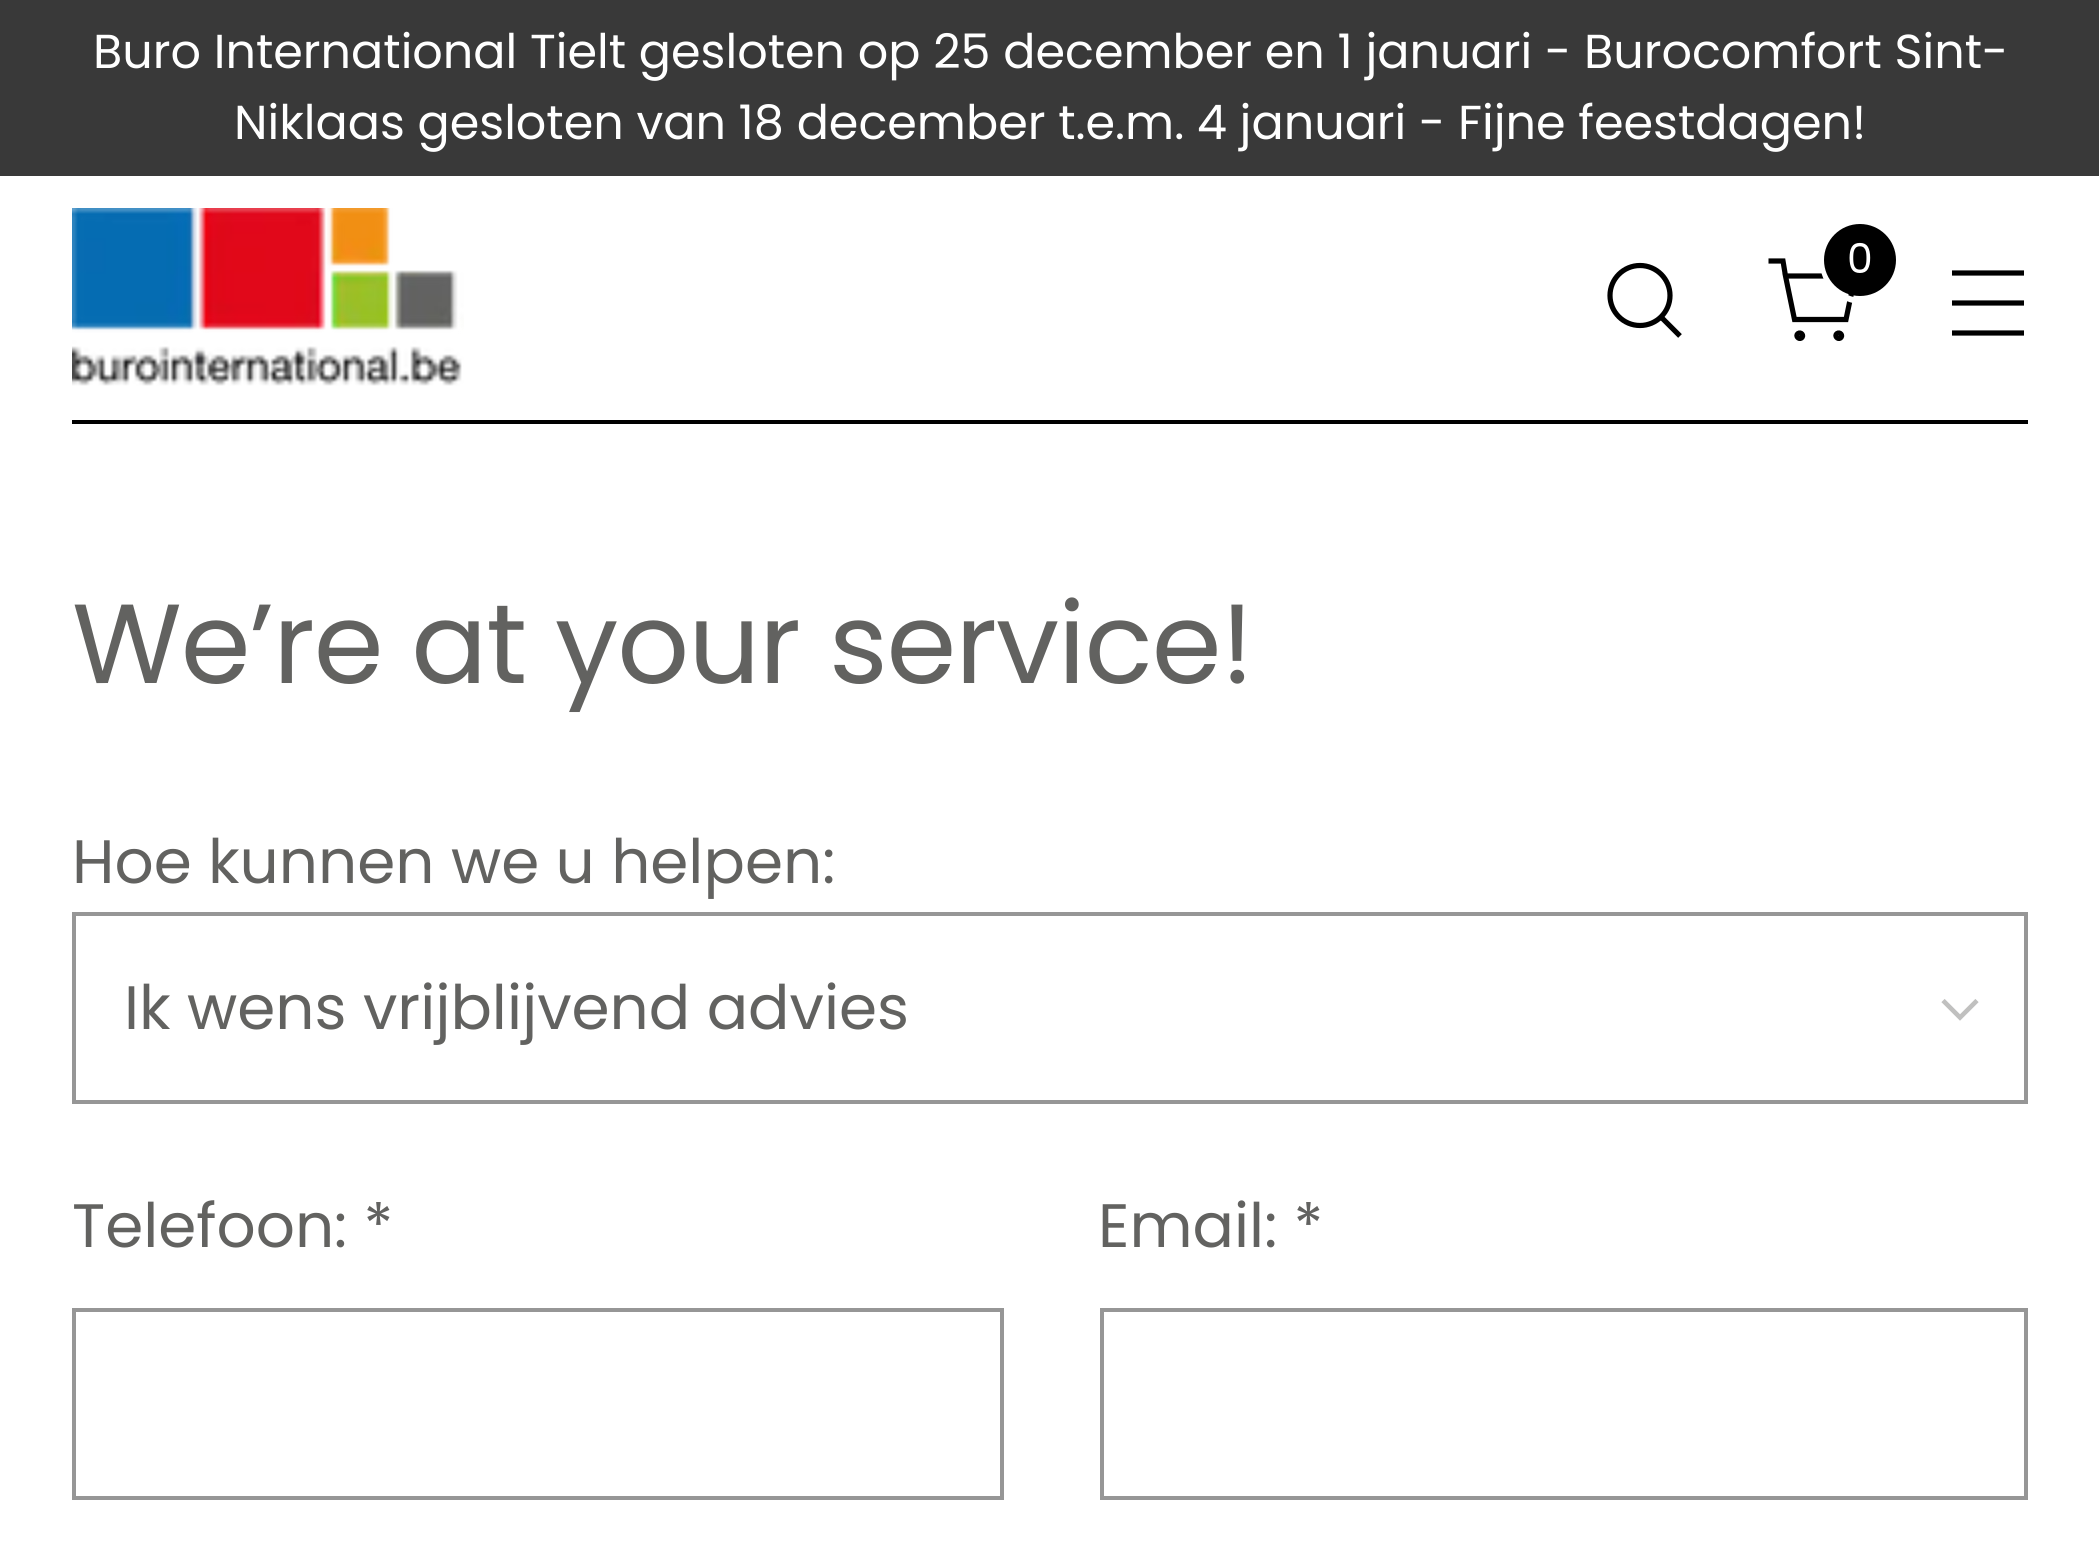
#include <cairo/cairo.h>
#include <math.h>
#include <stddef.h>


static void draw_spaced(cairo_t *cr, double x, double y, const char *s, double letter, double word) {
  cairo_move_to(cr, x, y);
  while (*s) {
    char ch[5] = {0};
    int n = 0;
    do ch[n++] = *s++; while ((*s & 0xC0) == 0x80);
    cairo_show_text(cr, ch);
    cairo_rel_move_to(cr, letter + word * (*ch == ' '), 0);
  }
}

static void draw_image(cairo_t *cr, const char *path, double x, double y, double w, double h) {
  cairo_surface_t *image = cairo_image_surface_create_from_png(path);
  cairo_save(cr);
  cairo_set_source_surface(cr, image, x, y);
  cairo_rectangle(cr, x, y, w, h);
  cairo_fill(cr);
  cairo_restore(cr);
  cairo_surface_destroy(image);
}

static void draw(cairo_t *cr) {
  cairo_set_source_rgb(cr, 1, 1, 1);
  cairo_paint(cr);
  cairo_set_source_rgb(cr, 57 / 255.0, 57 / 255.0, 57 / 255.0);
  cairo_rectangle(cr, 0, 0, 2099, 176);
  cairo_fill(cr);
  cairo_set_source_rgb(cr, 0, 0, 0);
  cairo_rectangle(cr, 72, 420, 1956, 4);
  cairo_fill(cr);
  draw_image(cr, "images/1.png", 72, 208, 392, 178);
  cairo_new_path(cr);
  cairo_move_to(cr, 1785.5, 276);
  cairo_line_to(cr, 1855, 276);
  cairo_line_to(cr, 1846, 319.5);
  cairo_line_to(cr, 1794.5, 319.5);
  cairo_close_path(cr);
  cairo_move_to(cr, 1785.5, 276);
  cairo_line_to(cr, 1783, 261);
  cairo_line_to(cr, 1768.5, 261);
  cairo_set_line_width(cr, 5.2);
  cairo_stroke(cr);
  cairo_new_path(cr);
  cairo_move_to(cr, 1798, 333.5);
  cairo_curve_to(cr, 1801, 331.5, 1804.5, 335.5, 1801.5, 338);
  cairo_curve_to(cr, 1798.5, 340, 1795, 335.5, 1798, 333.5);
  cairo_close_path(cr);
  cairo_move_to(cr, 1837, 333.5);
  cairo_curve_to(cr, 1840, 331.5, 1843.5, 335.5, 1840.5, 338);
  cairo_curve_to(cr, 1837.5, 340, 1834, 335.5, 1837, 333.5);
  cairo_close_path(cr);
  cairo_set_line_cap(cr, CAIRO_LINE_CAP_ROUND);
  cairo_set_line_join(cr, CAIRO_LINE_JOIN_BEVEL);
  cairo_stroke(cr);
  cairo_arc(cr, 1862, 262, 39, 0, 2 * M_PI);
  cairo_set_source_rgb(cr, 1, 1, 1);
  cairo_set_line_width(cr, 6);
  cairo_set_line_cap(cr, CAIRO_LINE_CAP_BUTT);
  cairo_set_line_join(cr, CAIRO_LINE_JOIN_MITER);
  cairo_stroke(cr);
  cairo_set_source_rgb(cr, 0, 0, 0);
  cairo_arc(cr, 1860, 260, 36, 0, 2 * M_PI);
  cairo_fill(cr);
  cairo_new_path(cr);
  cairo_move_to(cr, 1640, 325.5);
  cairo_curve_to(cr, 1656.5, 325.5, 1670, 312, 1670, 295.5);
  cairo_curve_to(cr, 1670, 279, 1656.5, 265.5, 1640, 265.5);
  cairo_curve_to(cr, 1623.5, 265.5, 1610, 279, 1610, 295.5);
  cairo_curve_to(cr, 1610, 312, 1623.5, 325.5, 1640, 325.5);
  cairo_close_path(cr);
  cairo_set_line_width(cr, 5.2);
  cairo_set_line_cap(cr, CAIRO_LINE_CAP_ROUND);
  cairo_stroke(cr);
  cairo_new_path(cr);
  cairo_move_to(cr, 1661.5, 317.5);
  cairo_line_to(cr, 1680, 336);
  cairo_set_line_cap(cr, CAIRO_LINE_CAP_BUTT);
  cairo_stroke(cr);
  cairo_new_path(cr);
  cairo_move_to(cr, 1952, 303);
  cairo_line_to(cr, 2024, 303);
  cairo_move_to(cr, 1952, 273);
  cairo_line_to(cr, 2024, 273);
  cairo_move_to(cr, 1952, 333);
  cairo_line_to(cr, 2024, 333);
  cairo_stroke(cr);
  cairo_rectangle(cr, 74, 914, 1952, 188);
  cairo_set_source_rgb(cr, 150 / 255.0, 150 / 255.0, 150 / 255.0);
  cairo_set_line_width(cr, 4);
  cairo_stroke(cr);
  cairo_new_path(cr);
  cairo_move_to(cr, 1943, 1000.5);
  cairo_line_to(cr, 1960, 1017.5);
  cairo_line_to(cr, 1977, 1000.5);
  cairo_set_source_rgb(cr, 192 / 255.0, 192 / 255.0, 191 / 255.0);
  cairo_set_line_width(cr, 4.6);
  cairo_stroke(cr);
  cairo_rectangle(cr, 74, 1310, 928, 188);
  cairo_set_source_rgb(cr, 150 / 255.0, 150 / 255.0, 150 / 255.0);
  cairo_set_line_width(cr, 4);
  cairo_stroke(cr);
  cairo_rectangle(cr, 1102, 1310, 924, 188);
  cairo_stroke(cr);
  cairo_select_font_face(cr, "Poppins", CAIRO_FONT_SLANT_NORMAL, CAIRO_FONT_WEIGHT_NORMAL);
  cairo_set_font_size(cr, 47.65);
  cairo_set_source_rgb(cr, 1, 1, 1);
  cairo_move_to(cr, 93, 68);
  cairo_show_text(cr, "Buro International Tielt gesloten op 25 december en 1 januari - Burocomfort Sint-");
  cairo_move_to(cr, 234, 139);
  cairo_show_text(cr, "Niklaas gesloten van 18 december t.e.m. 4 januari - Fijne feestdagen!");
  cairo_set_font_size(cr, 41);
  cairo_move_to(cr, 1847, 273);
  cairo_show_text(cr, "0");
  cairo_set_font_size(cr, 112.5);
  cairo_set_source_rgb(cr, 98 / 255.0, 98 / 255.0, 96 / 255.0);
  draw_spaced(cr, 72, 683, "We’re at your service!", -1.1, 0);
  cairo_set_font_size(cr, 61.3);
  cairo_move_to(cr, 72, 883);
  cairo_show_text(cr, "Hoe kunnen we u helpen:");
  cairo_move_to(cr, 124, 1029);
  cairo_show_text(cr, "Ik wens vrijblijvend advies");
  cairo_move_to(cr, 72, 1247);
  cairo_show_text(cr, "Telefoon: *");
  cairo_move_to(cr, 1098, 1247);
  cairo_show_text(cr, "Email: *");
}

int main(void) {
  cairo_surface_t *surface = cairo_image_surface_create(CAIRO_FORMAT_RGB24, 2099, 1546);
  cairo_t *cr = cairo_create(surface);
  cairo_font_options_t *options = cairo_font_options_create();
  cairo_font_options_set_hint_metrics(options, CAIRO_HINT_METRICS_OFF);
  cairo_font_options_set_hint_style(options, CAIRO_HINT_STYLE_NONE);
  cairo_set_font_options(cr, options);
  cairo_set_miter_limit(cr, 4);
  draw(cr);
  cairo_surface_write_to_png(surface, "out.png");
  cairo_font_options_destroy(options);
  cairo_destroy(cr);
  cairo_surface_destroy(surface);
  return 0;
}
